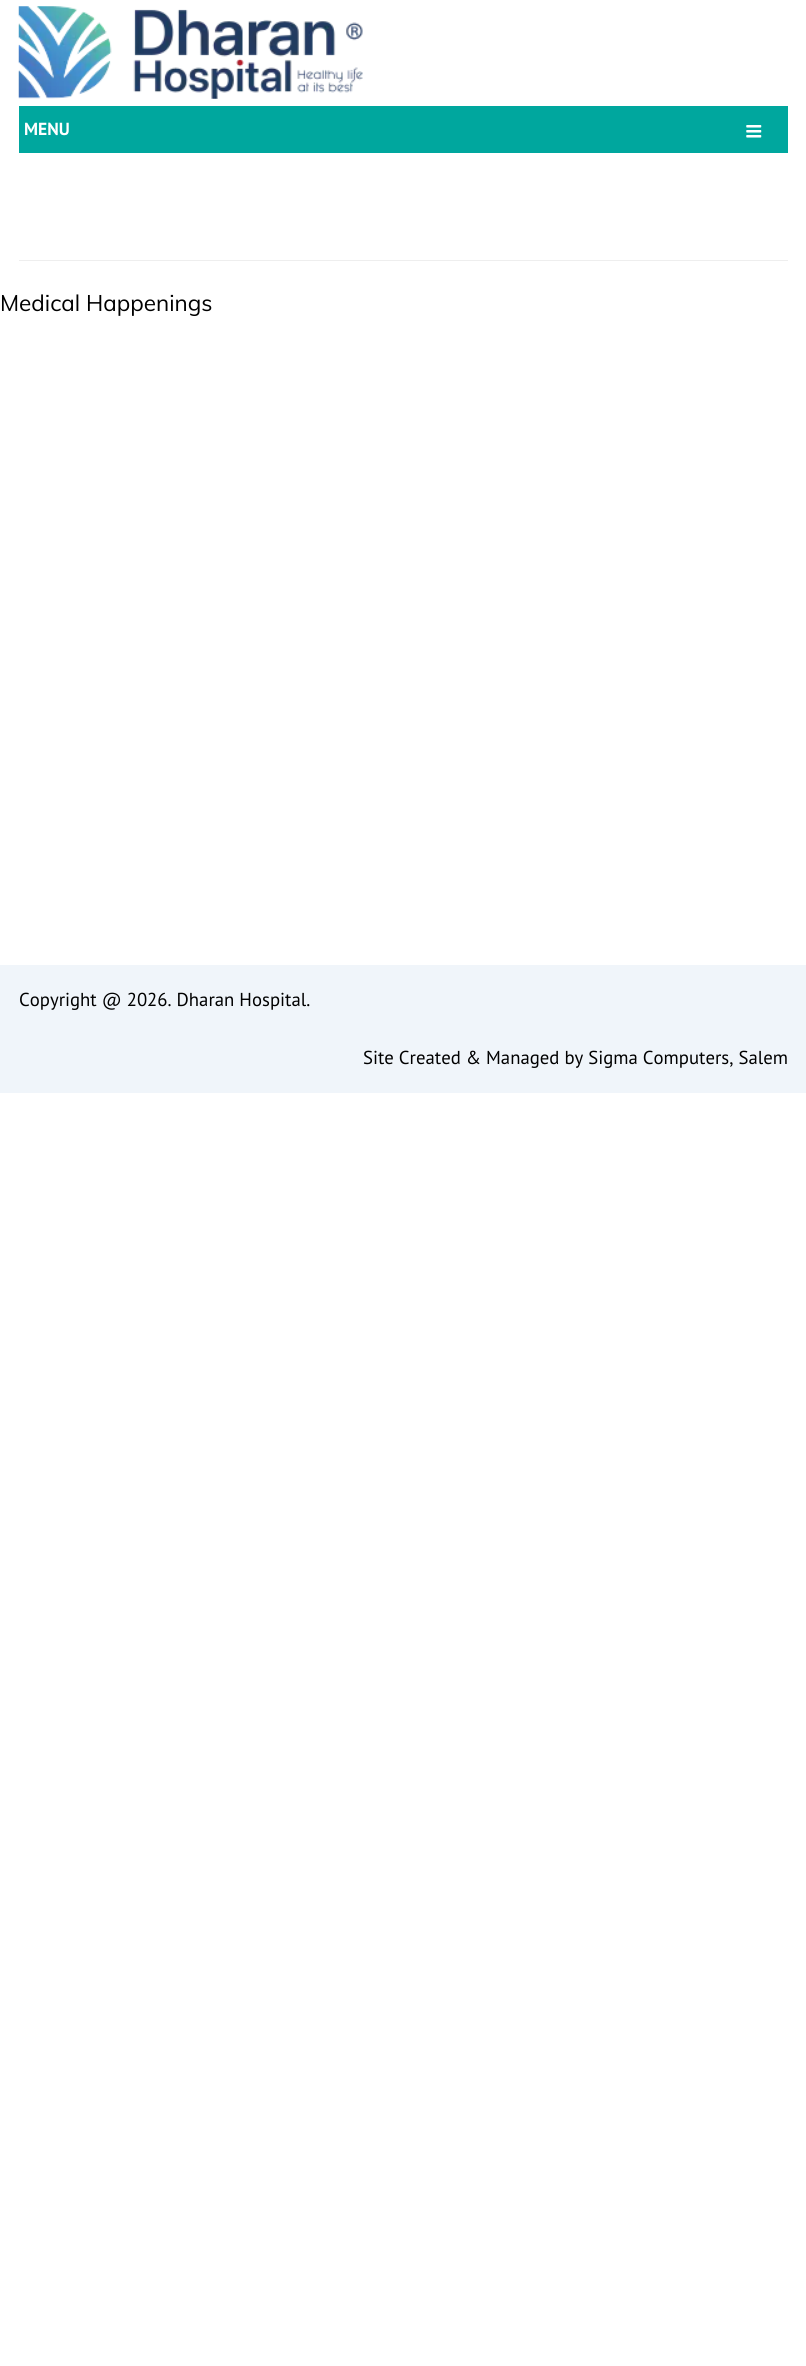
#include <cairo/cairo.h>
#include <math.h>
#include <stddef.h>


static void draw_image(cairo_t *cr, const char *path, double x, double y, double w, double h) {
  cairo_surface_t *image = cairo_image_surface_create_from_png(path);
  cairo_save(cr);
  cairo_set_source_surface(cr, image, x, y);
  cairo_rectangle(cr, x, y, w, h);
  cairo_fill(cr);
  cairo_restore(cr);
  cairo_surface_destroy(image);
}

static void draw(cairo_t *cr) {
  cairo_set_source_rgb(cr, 1, 1, 1);
  cairo_paint(cr);
  draw_image(cr, "images/1.png", 18, 6, 345, 93);
  cairo_set_source_rgb(cr, 0, 167 / 255.0, 158 / 255.0);
  cairo_rectangle(cr, 19, 106, 769, 47);
  cairo_fill(cr);
  draw_image(cr, "images/2.png", 746, 125, 16, 13);
  cairo_set_source_rgb(cr, 238 / 255.0, 238 / 255.0, 238 / 255.0);
  cairo_rectangle(cr, 19, 260, 769, 1);
  cairo_fill(cr);
  cairo_set_source_rgb(cr, 240 / 255.0, 245 / 255.0, 250 / 255.0);
  cairo_rectangle(cr, 0, 965, 806, 128);
  cairo_fill(cr);
  cairo_select_font_face(cr, "PT Sans", CAIRO_FONT_SLANT_NORMAL, CAIRO_FONT_WEIGHT_BOLD);
  cairo_set_font_size(cr, 17.5);
  cairo_set_source_rgb(cr, 1, 1, 1);
  cairo_move_to(cr, 24, 135);
  cairo_show_text(cr, "MENU");
  cairo_select_font_face(cr, "Muli", CAIRO_FONT_SLANT_NORMAL, CAIRO_FONT_WEIGHT_NORMAL);
  cairo_set_font_size(cr, 22.5);
  cairo_set_source_rgb(cr, 0, 0, 0);
  cairo_move_to(cr, 0, 311);
  cairo_show_text(cr, "Medical Happenings");
  cairo_select_font_face(cr, "PT Sans", CAIRO_FONT_SLANT_NORMAL, CAIRO_FONT_WEIGHT_NORMAL);
  cairo_set_font_size(cr, 18.75);
  cairo_move_to(cr, 19, 1006);
  cairo_show_text(cr, "Copyright @ 2026. Dharan Hospital.");
  cairo_move_to(cr, 363, 1064);
  cairo_show_text(cr, "Site Created & Managed by Sigma Computers, Salem");
}

int main(void) {
  cairo_surface_t *surface = cairo_image_surface_create(CAIRO_FORMAT_RGB24, 806, 2366);
  cairo_t *cr = cairo_create(surface);
  cairo_font_options_t *options = cairo_font_options_create();
  cairo_font_options_set_hint_metrics(options, CAIRO_HINT_METRICS_OFF);
  cairo_font_options_set_hint_style(options, CAIRO_HINT_STYLE_NONE);
  cairo_set_font_options(cr, options);
  cairo_set_miter_limit(cr, 4);
  draw(cr);
  cairo_surface_write_to_png(surface, "out.png");
  cairo_font_options_destroy(options);
  cairo_destroy(cr);
  cairo_surface_destroy(surface);
  return 0;
}
